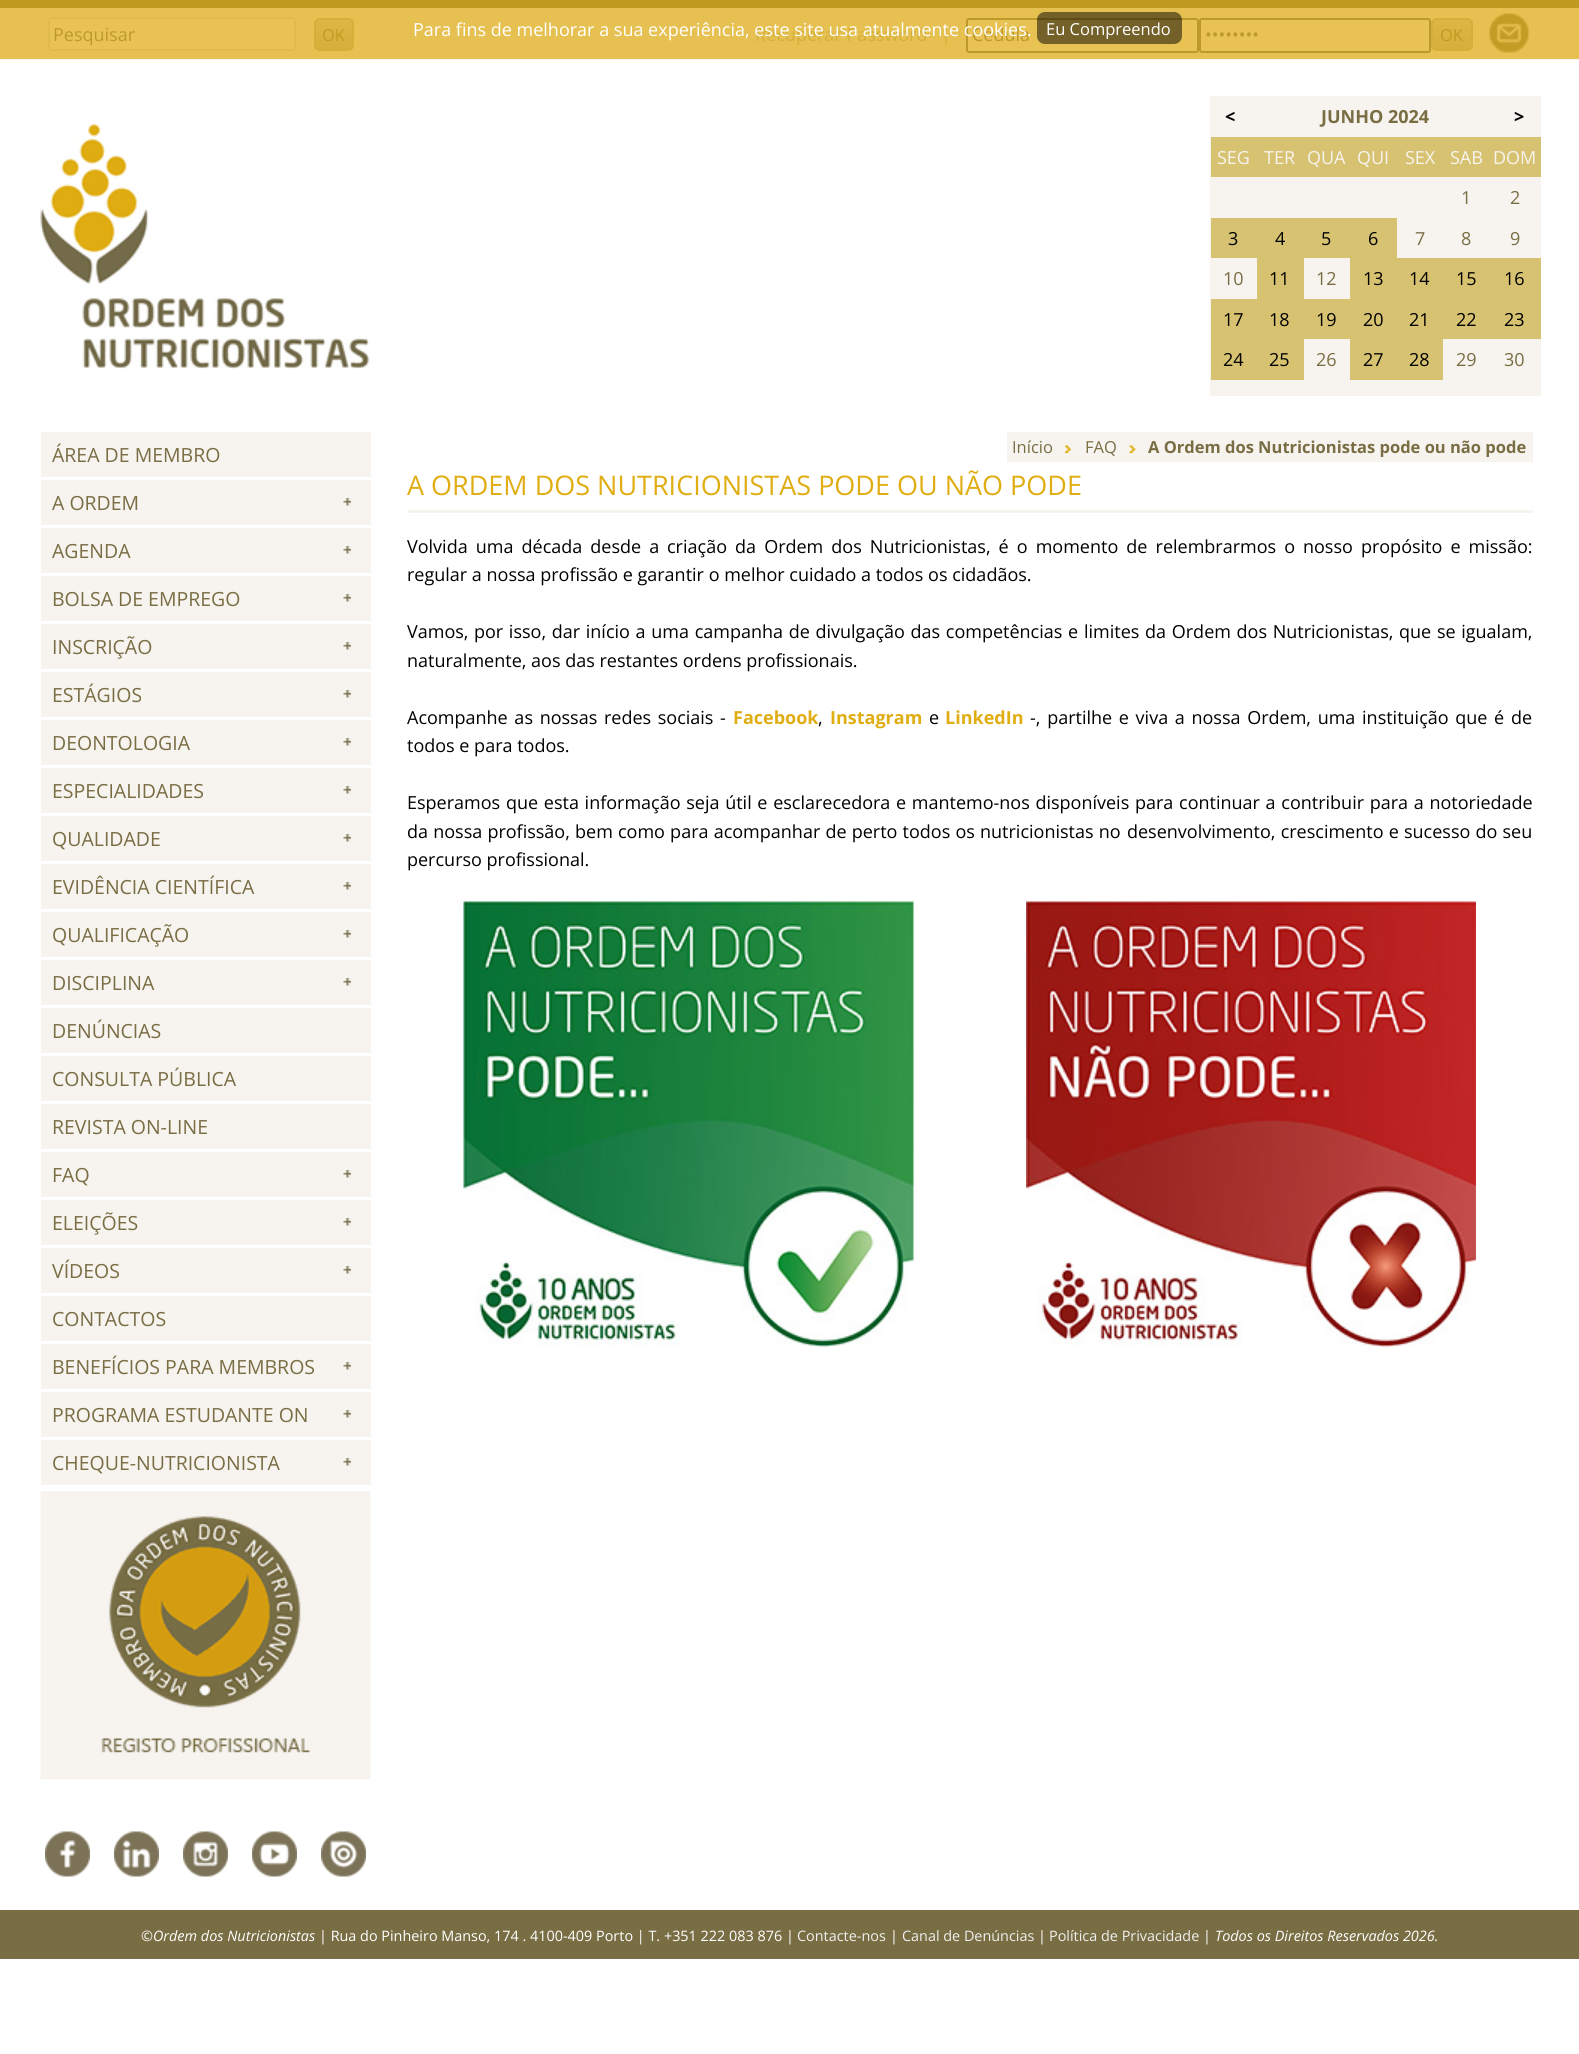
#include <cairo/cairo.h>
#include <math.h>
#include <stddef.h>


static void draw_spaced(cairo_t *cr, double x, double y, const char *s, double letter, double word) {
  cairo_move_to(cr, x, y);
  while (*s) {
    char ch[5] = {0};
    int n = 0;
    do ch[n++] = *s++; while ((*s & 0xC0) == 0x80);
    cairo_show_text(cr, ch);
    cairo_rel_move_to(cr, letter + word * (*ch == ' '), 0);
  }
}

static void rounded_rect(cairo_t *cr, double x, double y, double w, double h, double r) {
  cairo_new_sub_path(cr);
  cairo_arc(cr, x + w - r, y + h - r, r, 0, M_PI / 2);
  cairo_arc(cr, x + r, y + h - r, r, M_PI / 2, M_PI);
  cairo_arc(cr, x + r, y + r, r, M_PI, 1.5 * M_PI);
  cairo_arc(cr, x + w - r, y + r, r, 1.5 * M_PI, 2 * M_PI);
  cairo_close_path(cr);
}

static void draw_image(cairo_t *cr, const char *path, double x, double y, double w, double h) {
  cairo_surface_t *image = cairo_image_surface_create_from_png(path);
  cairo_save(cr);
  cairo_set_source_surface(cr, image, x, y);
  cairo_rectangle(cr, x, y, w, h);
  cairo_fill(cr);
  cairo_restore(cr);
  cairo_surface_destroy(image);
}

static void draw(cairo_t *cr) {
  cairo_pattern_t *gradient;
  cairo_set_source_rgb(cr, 1, 1, 1);
  cairo_paint(cr);
  cairo_set_source_rgb(cr, 247 / 255.0, 243 / 255.0, 239 / 255.0);
  cairo_rectangle(cr, 0, 59, 1579, 1);
  cairo_fill(cr);
  cairo_set_source_rgb(cr, 230 / 255.0, 192 / 255.0, 80 / 255.0);
  cairo_rectangle(cr, 0, 8, 1579, 51);
  cairo_fill(cr);
  cairo_set_source_rgb(cr, 193 / 255.0, 154 / 255.0, 34 / 255.0);
  cairo_rectangle(cr, 0, 0, 1579, 8);
  cairo_fill(cr);
  cairo_set_source_rgb(cr, 232 / 255.0, 195 / 255.0, 84 / 255.0);
  rounded_rect(cr, 967, 19, 231, 33, 2);
  cairo_fill_preserve(cr);
  cairo_set_source_rgb(cr, 189 / 255.0, 152 / 255.0, 42 / 255.0);
  cairo_stroke(cr);
  cairo_set_source_rgba(cr, 0, 0, 0, 0.5);
  rounded_rect(cr, 1037, 12, 145, 32, 8);
  cairo_fill(cr);
  cairo_set_source_rgb(cr, 232 / 255.0, 195 / 255.0, 84 / 255.0);
  rounded_rect(cr, 49, 18, 246, 32, 4);
  cairo_fill_preserve(cr);
  cairo_set_source_rgb(cr, 224 / 255.0, 187 / 255.0, 76 / 255.0);
  cairo_stroke(cr);
  cairo_save(cr);
  rounded_rect(cr, 314, 18, 40, 33, 6);
  cairo_clip(cr);
  gradient = cairo_pattern_create_linear(334, 19, 334, 50);
  cairo_pattern_add_color_stop_rgba(gradient, 0, 220 / 255.0, 183 / 255.0, 68 / 255.0, 1);
  cairo_pattern_add_color_stop_rgba(gradient, 1, 212 / 255.0, 175 / 255.0, 58 / 255.0, 1);
  cairo_set_source(cr, gradient);
  cairo_pattern_destroy(gradient);
  cairo_rectangle(cr, 314, 20, 40, 30);
  cairo_fill(cr);
  cairo_restore(cr);
  rounded_rect(cr, 315, 19, 38, 31, 5);
  cairo_set_source_rgb(cr, 212 / 255.0, 175 / 255.0, 58 / 255.0);
  cairo_stroke(cr);
  cairo_set_source_rgb(cr, 232 / 255.0, 195 / 255.0, 84 / 255.0);
  rounded_rect(cr, 1200, 19, 230, 33, 2);
  cairo_fill_preserve(cr);
  cairo_set_source_rgb(cr, 189 / 255.0, 152 / 255.0, 42 / 255.0);
  cairo_stroke(cr);
  cairo_save(cr);
  rounded_rect(cr, 1431, 18, 42, 33, 6);
  cairo_clip(cr);
  gradient = cairo_pattern_create_linear(1452, 19, 1452, 50);
  cairo_pattern_add_color_stop_rgba(gradient, 0, 220 / 255.0, 183 / 255.0, 68 / 255.0, 1);
  cairo_pattern_add_color_stop_rgba(gradient, 1, 212 / 255.0, 175 / 255.0, 58 / 255.0, 1);
  cairo_set_source(cr, gradient);
  cairo_pattern_destroy(gradient);
  cairo_rectangle(cr, 1431, 20, 42, 30);
  cairo_fill(cr);
  cairo_restore(cr);
  rounded_rect(cr, 1432, 19, 40, 31, 5);
  cairo_set_source_rgb(cr, 212 / 255.0, 175 / 255.0, 58 / 255.0);
  cairo_stroke(cr);
  draw_image(cr, "images/1.png", 1489, 13, 40, 40);
  draw_image(cr, "images/2.png", 40, 123, 330, 246);
  cairo_set_source_rgb(cr, 247 / 255.0, 243 / 255.0, 239 / 255.0);
  cairo_rectangle(cr, 1210, 96, 331, 300);
  cairo_fill(cr);
  cairo_set_source_rgb(cr, 214 / 255.0, 194 / 255.0, 112 / 255.0);
  cairo_rectangle(cr, 1211, 137, 330, 40);
  cairo_fill(cr);
  cairo_rectangle(cr, 1211, 218, 186, 40);
  cairo_fill(cr);
  cairo_rectangle(cr, 1257, 258, 47, 41);
  cairo_fill(cr);
  cairo_rectangle(cr, 1350, 258, 191, 41);
  cairo_fill(cr);
  cairo_rectangle(cr, 1211, 299, 330, 40);
  cairo_fill(cr);
  cairo_rectangle(cr, 1211, 339, 93, 41);
  cairo_fill(cr);
  cairo_rectangle(cr, 1350, 339, 93, 41);
  cairo_fill(cr);
  cairo_set_source_rgb(cr, 247 / 255.0, 243 / 255.0, 239 / 255.0);
  cairo_rectangle(cr, 41, 432, 330, 1053);
  cairo_fill(cr);
  cairo_set_source_rgb(cr, 1, 1, 1);
  cairo_rectangle(cr, 41, 477, 330, 3);
  cairo_fill(cr);
  cairo_rectangle(cr, 41, 525, 330, 3);
  cairo_fill(cr);
  draw_image(cr, "images/3.png", 343, 498, 8, 8);
  cairo_rectangle(cr, 41, 573, 330, 3);
  cairo_fill(cr);
  draw_image(cr, "images/3.png", 343, 546, 8, 8);
  cairo_rectangle(cr, 41, 621, 330, 3);
  cairo_fill(cr);
  draw_image(cr, "images/3.png", 343, 594, 8, 8);
  cairo_rectangle(cr, 41, 669, 330, 3);
  cairo_fill(cr);
  draw_image(cr, "images/3.png", 343, 642, 8, 8);
  cairo_rectangle(cr, 41, 717, 330, 3);
  cairo_fill(cr);
  draw_image(cr, "images/3.png", 343, 690, 8, 8);
  cairo_rectangle(cr, 41, 765, 330, 3);
  cairo_fill(cr);
  draw_image(cr, "images/3.png", 343, 738, 8, 8);
  cairo_rectangle(cr, 41, 813, 330, 3);
  cairo_fill(cr);
  draw_image(cr, "images/3.png", 343, 786, 8, 8);
  cairo_rectangle(cr, 41, 861, 330, 3);
  cairo_fill(cr);
  draw_image(cr, "images/3.png", 343, 834, 8, 8);
  cairo_rectangle(cr, 41, 909, 330, 3);
  cairo_fill(cr);
  draw_image(cr, "images/3.png", 343, 882, 8, 8);
  cairo_rectangle(cr, 41, 957, 330, 3);
  cairo_fill(cr);
  draw_image(cr, "images/3.png", 343, 930, 8, 8);
  cairo_rectangle(cr, 41, 1005, 330, 3);
  cairo_fill(cr);
  draw_image(cr, "images/3.png", 343, 978, 8, 8);
  cairo_rectangle(cr, 41, 1053, 330, 3);
  cairo_fill(cr);
  cairo_rectangle(cr, 41, 1101, 330, 3);
  cairo_fill(cr);
  cairo_rectangle(cr, 41, 1149, 330, 3);
  cairo_fill(cr);
  cairo_rectangle(cr, 41, 1197, 330, 3);
  cairo_fill(cr);
  draw_image(cr, "images/3.png", 343, 1170, 8, 8);
  cairo_rectangle(cr, 41, 1245, 330, 3);
  cairo_fill(cr);
  draw_image(cr, "images/3.png", 343, 1218, 8, 8);
  cairo_rectangle(cr, 41, 1293, 330, 3);
  cairo_fill(cr);
  draw_image(cr, "images/3.png", 343, 1266, 8, 8);
  cairo_rectangle(cr, 41, 1341, 330, 3);
  cairo_fill(cr);
  cairo_rectangle(cr, 41, 1389, 330, 3);
  cairo_fill(cr);
  draw_image(cr, "images/3.png", 343, 1362, 8, 8);
  cairo_rectangle(cr, 41, 1437, 330, 3);
  cairo_fill(cr);
  draw_image(cr, "images/3.png", 343, 1410, 8, 8);
  draw_image(cr, "images/3.png", 343, 1458, 8, 8);
  draw_image(cr, "images/4.png", 40, 1491, 331, 288);
  draw_image(cr, "images/5.png", 45, 1831, 45, 46);
  draw_image(cr, "images/6.png", 114, 1831, 45, 46);
  draw_image(cr, "images/7.png", 183, 1831, 45, 46);
  draw_image(cr, "images/8.png", 252, 1831, 45, 46);
  draw_image(cr, "images/9.png", 321, 1831, 45, 46);
  cairo_set_source_rgb(cr, 247 / 255.0, 243 / 255.0, 239 / 255.0);
  cairo_rectangle(cr, 1007, 432, 526, 30);
  cairo_fill(cr);
  draw_image(cr, "images/10.png", 1065, 445, 6, 8);
  draw_image(cr, "images/11.png", 1129, 445, 7, 8);
  cairo_rectangle(cr, 408, 510, 1125, 3);
  cairo_fill(cr);
  draw_image(cr, "images/12.png", 463, 901, 451, 447);
  draw_image(cr, "images/13.png", 1026, 901, 450, 447);
  cairo_set_source_rgb(cr, 121 / 255.0, 109 / 255.0, 67 / 255.0);
  cairo_rectangle(cr, 0, 1910, 1579, 49);
  cairo_fill(cr);
  cairo_select_font_face(cr, "Open Sans", CAIRO_FONT_SLANT_NORMAL, CAIRO_FONT_WEIGHT_NORMAL);
  cairo_set_font_size(cr, 16.5);
  cairo_set_source_rgb(cr, 1, 1, 1);
  cairo_move_to(cr, 1046, 35);
  cairo_show_text(cr, "Eu Compreendo");
  cairo_set_font_size(cr, 18);
  cairo_set_source_rgb(cr, 189 / 255.0, 152 / 255.0, 42 / 255.0);
  cairo_move_to(cr, 53, 41);
  cairo_show_text(cr, "Pesquisar");
  cairo_set_font_size(cr, 16.5);
  cairo_set_source_rgb(cr, 194 / 255.0, 154 / 255.0, 32 / 255.0);
  cairo_move_to(cr, 322, 41);
  cairo_show_text(cr, "OK");
  cairo_set_font_size(cr, 18);
  cairo_set_source_rgb(cr, 212 / 255.0, 175 / 255.0, 58 / 255.0);
  cairo_move_to(cr, 755, 41);
  cairo_show_text(cr, "Recuperar Password");
  cairo_move_to(cr, 941, 41);
  cairo_show_text(cr, "|");
  cairo_set_source_rgb(cr, 189 / 255.0, 152 / 255.0, 42 / 255.0);
  cairo_move_to(cr, 972, 41);
  cairo_show_text(cr, "Cédula");
  cairo_set_source_rgb(cr, 1, 1, 1);
  cairo_move_to(cr, 413, 36);
  cairo_show_text(cr, "Para fins de melhorar a sua experiência, este site usa atualmente cookies.");
  cairo_set_source_rgb(cr, 189 / 255.0, 152 / 255.0, 42 / 255.0);
  cairo_move_to(cr, 1205, 41);
  cairo_show_text(cr, "••••••••");
  cairo_set_font_size(cr, 16.5);
  cairo_set_source_rgb(cr, 194 / 255.0, 154 / 255.0, 32 / 255.0);
  cairo_move_to(cr, 1440, 41);
  cairo_show_text(cr, "OK");
  cairo_select_font_face(cr, "Open Sans", CAIRO_FONT_SLANT_NORMAL, CAIRO_FONT_WEIGHT_BOLD);
  cairo_set_font_size(cr, 18);
  cairo_set_source_rgb(cr, 0, 0, 0);
  cairo_move_to(cr, 1225, 123);
  cairo_show_text(cr, "<");
  cairo_set_source_rgb(cr, 121 / 255.0, 109 / 255.0, 67 / 255.0);
  cairo_move_to(cr, 1321, 123);
  cairo_show_text(cr, "JUNHO 2024");
  cairo_set_source_rgb(cr, 0, 0, 0);
  cairo_move_to(cr, 1514, 123);
  cairo_show_text(cr, ">");
  cairo_select_font_face(cr, "Open Sans", CAIRO_FONT_SLANT_NORMAL, CAIRO_FONT_WEIGHT_NORMAL);
  cairo_set_source_rgb(cr, 247 / 255.0, 243 / 255.0, 239 / 255.0);
  cairo_move_to(cr, 1217, 164);
  cairo_show_text(cr, "SEG");
  cairo_move_to(cr, 1264, 164);
  cairo_show_text(cr, "TER");
  cairo_move_to(cr, 1307, 164);
  cairo_show_text(cr, "QUA");
  cairo_move_to(cr, 1357, 164);
  cairo_show_text(cr, "QUI");
  cairo_move_to(cr, 1405, 164);
  cairo_show_text(cr, "SEX");
  cairo_move_to(cr, 1450, 164);
  cairo_show_text(cr, "SAB");
  cairo_move_to(cr, 1493, 164);
  cairo_show_text(cr, "DOM");
  cairo_set_source_rgb(cr, 121 / 255.0, 109 / 255.0, 67 / 255.0);
  cairo_move_to(cr, 1461, 204);
  cairo_show_text(cr, "1");
  cairo_move_to(cr, 1510, 204);
  cairo_show_text(cr, "2");
  cairo_set_source_rgb(cr, 0, 0, 0);
  cairo_move_to(cr, 1228, 245);
  cairo_show_text(cr, "3");
  cairo_move_to(cr, 1275, 245);
  cairo_show_text(cr, "4");
  cairo_move_to(cr, 1321, 245);
  cairo_show_text(cr, "5");
  cairo_move_to(cr, 1368, 245);
  cairo_show_text(cr, "6");
  cairo_set_source_rgb(cr, 121 / 255.0, 109 / 255.0, 67 / 255.0);
  cairo_move_to(cr, 1415, 245);
  cairo_show_text(cr, "7");
  cairo_move_to(cr, 1461, 245);
  cairo_show_text(cr, "8");
  cairo_move_to(cr, 1510, 245);
  cairo_show_text(cr, "9");
  cairo_move_to(cr, 1223, 285);
  cairo_show_text(cr, "10");
  cairo_set_source_rgb(cr, 0, 0, 0);
  cairo_move_to(cr, 1269, 285);
  cairo_show_text(cr, "11");
  cairo_set_source_rgb(cr, 121 / 255.0, 109 / 255.0, 67 / 255.0);
  cairo_move_to(cr, 1316, 285);
  cairo_show_text(cr, "12");
  cairo_set_source_rgb(cr, 0, 0, 0);
  cairo_move_to(cr, 1363, 285);
  cairo_show_text(cr, "13");
  cairo_move_to(cr, 1409, 285);
  cairo_show_text(cr, "14");
  cairo_move_to(cr, 1456, 285);
  cairo_show_text(cr, "15");
  cairo_move_to(cr, 1504, 285);
  cairo_show_text(cr, "16");
  cairo_move_to(cr, 1223, 326);
  cairo_show_text(cr, "17");
  cairo_move_to(cr, 1269, 326);
  cairo_show_text(cr, "18");
  cairo_move_to(cr, 1316, 326);
  cairo_show_text(cr, "19");
  cairo_move_to(cr, 1363, 326);
  cairo_show_text(cr, "20");
  cairo_move_to(cr, 1409, 326);
  cairo_show_text(cr, "21");
  cairo_move_to(cr, 1456, 326);
  cairo_show_text(cr, "22");
  cairo_move_to(cr, 1504, 326);
  cairo_show_text(cr, "23");
  cairo_move_to(cr, 1223, 366);
  cairo_show_text(cr, "24");
  cairo_move_to(cr, 1269, 366);
  cairo_show_text(cr, "25");
  cairo_set_source_rgb(cr, 121 / 255.0, 109 / 255.0, 67 / 255.0);
  cairo_move_to(cr, 1316, 366);
  cairo_show_text(cr, "26");
  cairo_set_source_rgb(cr, 0, 0, 0);
  cairo_move_to(cr, 1363, 366);
  cairo_show_text(cr, "27");
  cairo_move_to(cr, 1409, 366);
  cairo_show_text(cr, "28");
  cairo_set_source_rgb(cr, 121 / 255.0, 109 / 255.0, 67 / 255.0);
  cairo_move_to(cr, 1456, 366);
  cairo_show_text(cr, "29");
  cairo_move_to(cr, 1504, 366);
  cairo_show_text(cr, "30");
  cairo_set_font_size(cr, 19.5);
  cairo_move_to(cr, 52, 462);
  cairo_show_text(cr, "ÁREA DE MEMBRO");
  cairo_move_to(cr, 52, 510);
  cairo_show_text(cr, "A ORDEM");
  cairo_move_to(cr, 52, 558);
  cairo_show_text(cr, "AGENDA");
  cairo_move_to(cr, 52, 606);
  cairo_show_text(cr, "BOLSA DE EMPREGO");
  cairo_move_to(cr, 52, 654);
  cairo_show_text(cr, "INSCRIÇÃO");
  cairo_move_to(cr, 52, 702);
  cairo_show_text(cr, "ESTÁGIOS");
  cairo_move_to(cr, 52, 750);
  cairo_show_text(cr, "DEONTOLOGIA");
  cairo_move_to(cr, 52, 798);
  cairo_show_text(cr, "ESPECIALIDADES");
  cairo_move_to(cr, 52, 846);
  cairo_show_text(cr, "QUALIDADE");
  cairo_move_to(cr, 52, 894);
  cairo_show_text(cr, "EVIDÊNCIA CIENTÍFICA");
  cairo_move_to(cr, 52, 942);
  cairo_show_text(cr, "QUALIFICAÇÃO");
  cairo_move_to(cr, 52, 990);
  cairo_show_text(cr, "DISCIPLINA");
  cairo_move_to(cr, 52, 1038);
  cairo_show_text(cr, "DENÚNCIAS");
  cairo_move_to(cr, 52, 1086);
  cairo_show_text(cr, "CONSULTA PÚBLICA");
  cairo_move_to(cr, 52, 1134);
  cairo_show_text(cr, "REVISTA ON-LINE");
  cairo_move_to(cr, 52, 1182);
  cairo_show_text(cr, "FAQ");
  cairo_move_to(cr, 52, 1230);
  cairo_show_text(cr, "ELEIÇÕES");
  cairo_move_to(cr, 52, 1278);
  cairo_show_text(cr, "VÍDEOS");
  cairo_move_to(cr, 52, 1326);
  cairo_show_text(cr, "CONTACTOS");
  cairo_move_to(cr, 52, 1374);
  cairo_show_text(cr, "BENEFÍCIOS PARA MEMBROS");
  cairo_move_to(cr, 52, 1422);
  cairo_show_text(cr, "PROGRAMA ESTUDANTE ON");
  cairo_move_to(cr, 52, 1470);
  cairo_show_text(cr, "CHEQUE-NUTRICIONISTA");
  cairo_set_font_size(cr, 16.5);
  cairo_move_to(cr, 1012, 453);
  cairo_show_text(cr, "Início");
  cairo_move_to(cr, 1085, 453);
  cairo_show_text(cr, "FAQ");
  cairo_select_font_face(cr, "Open Sans", CAIRO_FONT_SLANT_NORMAL, CAIRO_FONT_WEIGHT_BOLD);
  cairo_move_to(cr, 1148, 453);
  cairo_show_text(cr, "A Ordem dos Nutricionistas pode ou não pode");
  cairo_select_font_face(cr, "Open Sans", CAIRO_FONT_SLANT_NORMAL, CAIRO_FONT_WEIGHT_NORMAL);
  cairo_set_font_size(cr, 27);
  cairo_set_source_rgb(cr, 224 / 255.0, 173 / 255.0, 18 / 255.0);
  cairo_move_to(cr, 407, 495);
  cairo_show_text(cr, "A ORDEM DOS NUTRICIONISTAS PODE OU NÃO PODE");
  cairo_set_font_size(cr, 18);
  cairo_set_source_rgb(cr, 0, 0, 0);
  draw_spaced(cr, 407, 553, "Volvida uma década desde a", 0, 3.4);
  draw_spaced(cr, 667, 553, "criação da Ordem dos Nutricionistas, é o momento de relembrarmos o", 0, 3.4);
  draw_spaced(cr, 1303, 553, "nosso propósito e missão:", 0, 3.4);
  cairo_move_to(cr, 407, 581);
  cairo_show_text(cr, "regular a nossa profissão e garantir o melhor cuidado a todos os cidadãos.");
  cairo_move_to(cr, 407, 638);
  cairo_show_text(cr, "Vamos,");
  draw_spaced(cr, 474, 638, "por isso, dar início a uma campanha de divulgação das competências e", 0, 1);
  draw_spaced(cr, 1084, 638, "limites da Ordem dos Nutricionistas, que se igualam,", 0, 1);
  cairo_move_to(cr, 407, 667);
  cairo_show_text(cr, "naturalmente, aos das restantes ordens profissionais.");
  draw_spaced(cr, 407, 724, "Acompanhe as nossas redes sociais -", 0, 2);
  cairo_select_font_face(cr, "Open Sans", CAIRO_FONT_SLANT_NORMAL, CAIRO_FONT_WEIGHT_BOLD);
  cairo_set_source_rgb(cr, 224 / 255.0, 173 / 255.0, 18 / 255.0);
  cairo_move_to(cr, 733, 724);
  cairo_show_text(cr, "Facebook");
  cairo_select_font_face(cr, "Open Sans", CAIRO_FONT_SLANT_NORMAL, CAIRO_FONT_WEIGHT_NORMAL);
  cairo_set_source_rgb(cr, 0, 0, 0);
  cairo_move_to(cr, 818, 724);
  cairo_show_text(cr, ",");
  cairo_select_font_face(cr, "Open Sans", CAIRO_FONT_SLANT_NORMAL, CAIRO_FONT_WEIGHT_BOLD);
  cairo_set_source_rgb(cr, 224 / 255.0, 173 / 255.0, 18 / 255.0);
  cairo_move_to(cr, 830, 724);
  cairo_show_text(cr, "Instagram");
  cairo_select_font_face(cr, "Open Sans", CAIRO_FONT_SLANT_NORMAL, CAIRO_FONT_WEIGHT_NORMAL);
  cairo_set_source_rgb(cr, 0, 0, 0);
  cairo_move_to(cr, 929, 724);
  cairo_show_text(cr, "e");
  cairo_select_font_face(cr, "Open Sans", CAIRO_FONT_SLANT_NORMAL, CAIRO_FONT_WEIGHT_BOLD);
  cairo_set_source_rgb(cr, 224 / 255.0, 173 / 255.0, 18 / 255.0);
  cairo_move_to(cr, 945, 724);
  cairo_show_text(cr, "LinkedIn");
  cairo_select_font_face(cr, "Open Sans", CAIRO_FONT_SLANT_NORMAL, CAIRO_FONT_WEIGHT_NORMAL);
  cairo_set_source_rgb(cr, 0, 0, 0);
  draw_spaced(cr, 1030, 724, "-, partilhe e viva a nossa Ordem, uma instituição que é de", 0, 2);
  cairo_move_to(cr, 407, 752);
  cairo_show_text(cr, "todos e para todos.");
  cairo_move_to(cr, 407, 809);
  cairo_show_text(cr, "Esperamos");
  draw_spaced(cr, 506, 809, "que esta informação seja útil e esclarecedora e mantemo-nos disponíveis", 0, 1);
  draw_spaced(cr, 1135, 809, "para continuar a contribuir para a notoriedade", 0, 1);
  draw_spaced(cr, 407, 838, "da nossa profissão, bem", 0, 0.5);
  draw_spaced(cr, 618, 838, "como para acompanhar de perto todos os nutricionistas no", 0, 0.5);
  draw_spaced(cr, 1127, 838, "desenvolvimento, crescimento e sucesso do seu", 0, 0.5);
  cairo_move_to(cr, 407, 866);
  cairo_show_text(cr, "percurso profissional.");
  cairo_select_font_face(cr, "Open Sans", CAIRO_FONT_SLANT_ITALIC, CAIRO_FONT_WEIGHT_NORMAL);
  cairo_set_font_size(cr, 14.4);
  cairo_set_source_rgb(cr, 1, 1, 1);
  cairo_move_to(cr, 141, 1941);
  cairo_show_text(cr, "©Ordem dos Nutricionistas");
  cairo_select_font_face(cr, "Open Sans", CAIRO_FONT_SLANT_NORMAL, CAIRO_FONT_WEIGHT_NORMAL);
  cairo_move_to(cr, 319, 1941);
  cairo_show_text(cr, "| Rua do Pinheiro Manso, 174 . 4100-409 Porto | T. +351 222 083 876 |");
  cairo_set_source_rgb(cr, 239 / 255.0, 239 / 255.0, 239 / 255.0);
  cairo_move_to(cr, 797, 1941);
  cairo_show_text(cr, "Contacte-nos");
  cairo_set_source_rgb(cr, 1, 1, 1);
  cairo_move_to(cr, 890, 1941);
  cairo_show_text(cr, "|");
  cairo_set_source_rgb(cr, 239 / 255.0, 239 / 255.0, 239 / 255.0);
  cairo_move_to(cr, 902, 1941);
  cairo_show_text(cr, "Canal de Denúncias");
  cairo_set_source_rgb(cr, 1, 1, 1);
  cairo_move_to(cr, 1038, 1941);
  cairo_show_text(cr, "|");
  cairo_set_source_rgb(cr, 239 / 255.0, 239 / 255.0, 239 / 255.0);
  cairo_move_to(cr, 1049, 1941);
  cairo_show_text(cr, "Política de Privacidade");
  cairo_set_source_rgb(cr, 1, 1, 1);
  cairo_move_to(cr, 1203, 1941);
  cairo_show_text(cr, "|");
  cairo_select_font_face(cr, "Open Sans", CAIRO_FONT_SLANT_ITALIC, CAIRO_FONT_WEIGHT_NORMAL);
  cairo_move_to(cr, 1215, 1941);
  cairo_show_text(cr, "Todos os Direitos Reservados 2026");
  cairo_select_font_face(cr, "Open Sans", CAIRO_FONT_SLANT_NORMAL, CAIRO_FONT_WEIGHT_NORMAL);
  cairo_move_to(cr, 1434, 1941);
  cairo_show_text(cr, ".");
}

int main(void) {
  cairo_surface_t *surface = cairo_image_surface_create(CAIRO_FORMAT_RGB24, 1579, 2054);
  cairo_t *cr = cairo_create(surface);
  cairo_font_options_t *options = cairo_font_options_create();
  cairo_font_options_set_hint_metrics(options, CAIRO_HINT_METRICS_OFF);
  cairo_font_options_set_hint_style(options, CAIRO_HINT_STYLE_NONE);
  cairo_set_font_options(cr, options);
  cairo_set_miter_limit(cr, 4);
  draw(cr);
  cairo_surface_write_to_png(surface, "out.png");
  cairo_font_options_destroy(options);
  cairo_destroy(cr);
  cairo_surface_destroy(surface);
  return 0;
}
